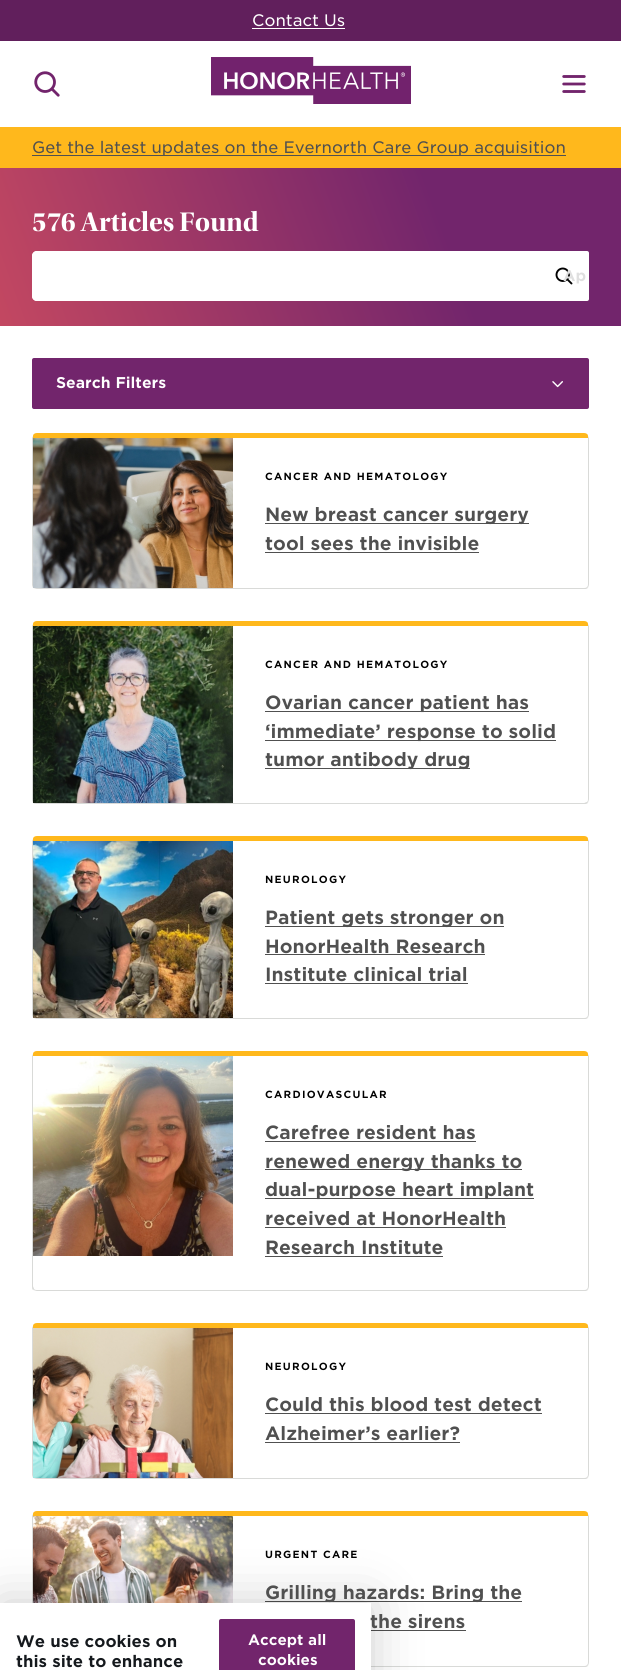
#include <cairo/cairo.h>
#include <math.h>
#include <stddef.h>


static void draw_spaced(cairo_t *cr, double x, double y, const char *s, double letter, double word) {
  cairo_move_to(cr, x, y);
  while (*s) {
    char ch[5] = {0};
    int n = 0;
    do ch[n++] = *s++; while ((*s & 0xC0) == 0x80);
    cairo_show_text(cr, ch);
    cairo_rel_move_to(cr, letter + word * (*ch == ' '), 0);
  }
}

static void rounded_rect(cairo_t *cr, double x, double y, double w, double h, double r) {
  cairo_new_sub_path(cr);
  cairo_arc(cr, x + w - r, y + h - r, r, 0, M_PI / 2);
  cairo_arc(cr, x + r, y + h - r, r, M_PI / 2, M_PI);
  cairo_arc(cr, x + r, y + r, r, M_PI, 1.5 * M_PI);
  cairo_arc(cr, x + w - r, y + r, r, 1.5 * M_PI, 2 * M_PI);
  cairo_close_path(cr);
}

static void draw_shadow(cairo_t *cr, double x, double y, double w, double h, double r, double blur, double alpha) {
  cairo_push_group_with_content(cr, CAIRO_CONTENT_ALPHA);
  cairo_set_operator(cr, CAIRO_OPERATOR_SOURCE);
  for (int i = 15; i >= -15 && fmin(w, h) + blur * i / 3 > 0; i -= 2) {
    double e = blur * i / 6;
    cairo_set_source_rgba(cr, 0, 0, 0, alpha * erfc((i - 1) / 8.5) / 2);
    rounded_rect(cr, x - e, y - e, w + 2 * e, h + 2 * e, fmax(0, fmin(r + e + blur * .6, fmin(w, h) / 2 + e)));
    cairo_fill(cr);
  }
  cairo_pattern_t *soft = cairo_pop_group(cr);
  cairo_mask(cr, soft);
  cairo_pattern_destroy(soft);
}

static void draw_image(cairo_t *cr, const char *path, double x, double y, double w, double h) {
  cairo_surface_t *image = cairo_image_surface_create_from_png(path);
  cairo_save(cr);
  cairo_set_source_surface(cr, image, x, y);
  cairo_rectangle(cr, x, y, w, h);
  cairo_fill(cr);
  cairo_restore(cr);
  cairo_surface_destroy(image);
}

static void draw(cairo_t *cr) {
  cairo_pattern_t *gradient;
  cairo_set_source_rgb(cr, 1, 1, 1);
  cairo_paint(cr);
  cairo_set_source_rgb(cr, 97 / 255.0, 31 / 255.0, 92 / 255.0);
  cairo_rectangle(cr, 0, 0, 621, 41);
  cairo_fill(cr);
  cairo_set_source_rgb(cr, 1, 1, 1);
  cairo_rectangle(cr, 252, 28, 93, 1);
  cairo_fill(cr);
  draw_image(cr, "images/1.png", 34, 71, 26, 26);
  draw_image(cr, "images/2.png", 211, 57, 200, 47);
  draw_image(cr, "images/3.png", 562, 75, 24, 18);
  cairo_set_source_rgb(cr, 1, 184 / 255.0, 28 / 255.0);
  cairo_rectangle(cr, 0, 127, 621, 41);
  cairo_fill(cr);
  cairo_set_source_rgb(cr, 80 / 255.0, 80 / 255.0, 80 / 255.0);
  cairo_rectangle(cr, 32, 155, 534, 1);
  cairo_fill(cr);
  gradient = cairo_pattern_create_linear(-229, 443, 610, 138);
  cairo_pattern_add_color_stop_rgba(gradient, 0, 241 / 255.0, 91 / 255.0, 91 / 255.0, 1);
  cairo_pattern_add_color_stop_rgba(gradient, 0.79, 114 / 255.0, 37 / 255.0, 108 / 255.0, 1);
  cairo_set_source(cr, gradient);
  cairo_pattern_destroy(gradient);
  cairo_rectangle(cr, 0, 168, 621, 158);
  cairo_fill(cr);
  cairo_set_source_rgb(cr, 1, 1, 1);
  rounded_rect(cr, 32, 251, 557, 50, 5);
  cairo_fill(cr);
  rounded_rect(cr, 32, 251, 507, 50, 5);
  cairo_fill(cr);
  rounded_rect(cr, 539, 251, 50, 50, 2);
  cairo_fill(cr);
  draw_image(cr, "images/4.png", 555, 267, 18, 18);
  cairo_set_source_rgb(cr, 114 / 255.0, 37 / 255.0, 108 / 255.0);
  rounded_rect(cr, 32, 358, 557, 51, 2);
  cairo_fill(cr);
  draw_image(cr, "images/5.png", 552, 381, 11, 7);
  cairo_set_source_rgb(cr, 1, 184 / 255.0, 28 / 255.0);
  cairo_new_path(cr);
  cairo_move_to(cr, 37, 433);
  cairo_curve_to(cr, 35, 433, 33, 434, 33, 436);
  cairo_line_to(cr, 33, 438);
  cairo_line_to(cr, 588, 438);
  cairo_line_to(cr, 588, 436);
  cairo_curve_to(cr, 588, 434, 586, 433, 584, 433);
  cairo_close_path(cr);
  cairo_fill(cr);
  cairo_set_source_rgb(cr, 217 / 255.0, 218 / 255.0, 216 / 255.0);
  cairo_new_path(cr);
  cairo_move_to(cr, 589, 584);
  cairo_line_to(cr, 589, 438);
  cairo_line_to(cr, 588, 436);
  cairo_line_to(cr, 588, 438);
  cairo_line_to(cr, 588, 584);
  cairo_curve_to(cr, 588, 585, 588, 586, 587, 587);
  cairo_line_to(cr, 588, 588);
  cairo_curve_to(cr, 588, 587, 589, 586, 589, 584);
  cairo_close_path(cr);
  cairo_fill(cr);
  cairo_new_path(cr);
  cairo_move_to(cr, 37, 589);
  cairo_line_to(cr, 586, 589);
  cairo_line_to(cr, 588, 588);
  cairo_line_to(cr, 587, 587);
  cairo_curve_to(cr, 586, 588, 585, 588, 584, 588);
  cairo_line_to(cr, 37, 588);
  cairo_curve_to(cr, 36, 588, 35, 588, 34, 587);
  cairo_line_to(cr, 33, 588);
  cairo_curve_to(cr, 34, 588, 36, 589, 37, 589);
  cairo_close_path(cr);
  cairo_fill(cr);
  cairo_new_path(cr);
  cairo_move_to(cr, 32, 438);
  cairo_line_to(cr, 32, 585);
  cairo_line_to(cr, 33, 588);
  cairo_line_to(cr, 34, 587);
  cairo_curve_to(cr, 34, 586, 33, 585, 33, 584);
  cairo_line_to(cr, 33, 438);
  cairo_line_to(cr, 33, 436);
  cairo_close_path(cr);
  cairo_fill(cr);
  draw_image(cr, "images/6.png", 33, 438, 200, 150);
  cairo_set_source_rgb(cr, 80 / 255.0, 80 / 255.0, 80 / 255.0);
  cairo_rectangle(cr, 265, 523, 264, 1);
  cairo_fill(cr);
  cairo_rectangle(cr, 265, 552, 214, 1);
  cairo_fill(cr);
  cairo_set_source_rgb(cr, 1, 184 / 255.0, 28 / 255.0);
  cairo_new_path(cr);
  cairo_move_to(cr, 37, 621);
  cairo_curve_to(cr, 35, 621, 33, 622, 33, 624);
  cairo_line_to(cr, 33, 626);
  cairo_line_to(cr, 588, 626);
  cairo_line_to(cr, 588, 624);
  cairo_curve_to(cr, 588, 622, 586, 621, 584, 621);
  cairo_close_path(cr);
  cairo_fill(cr);
  cairo_set_source_rgb(cr, 217 / 255.0, 218 / 255.0, 216 / 255.0);
  cairo_new_path(cr);
  cairo_move_to(cr, 589, 799);
  cairo_line_to(cr, 589, 626);
  cairo_line_to(cr, 588, 624);
  cairo_line_to(cr, 588, 626);
  cairo_line_to(cr, 588, 799);
  cairo_curve_to(cr, 588, 800, 588, 801, 587, 802);
  cairo_line_to(cr, 588, 803);
  cairo_curve_to(cr, 588, 802, 589, 800, 589, 799);
  cairo_close_path(cr);
  cairo_fill(cr);
  cairo_new_path(cr);
  cairo_move_to(cr, 37, 804);
  cairo_line_to(cr, 586, 804);
  cairo_line_to(cr, 588, 803);
  cairo_line_to(cr, 587, 802);
  cairo_curve_to(cr, 586, 802, 585, 803, 584, 803);
  cairo_line_to(cr, 37, 803);
  cairo_curve_to(cr, 36, 803, 35, 802, 34, 802);
  cairo_line_to(cr, 33, 803);
  cairo_curve_to(cr, 34, 804, 36, 804, 37, 804);
  cairo_close_path(cr);
  cairo_fill(cr);
  cairo_new_path(cr);
  cairo_move_to(cr, 32, 626);
  cairo_line_to(cr, 32, 800);
  cairo_line_to(cr, 33, 803);
  cairo_line_to(cr, 34, 802);
  cairo_curve_to(cr, 34, 801, 33, 800, 33, 799);
  cairo_line_to(cr, 33, 626);
  cairo_line_to(cr, 33, 624);
  cairo_close_path(cr);
  cairo_fill(cr);
  draw_image(cr, "images/7.png", 33, 626, 200, 177);
  cairo_set_source_rgb(cr, 80 / 255.0, 80 / 255.0, 80 / 255.0);
  cairo_rectangle(cr, 265, 711, 264, 1);
  cairo_fill(cr);
  cairo_rectangle(cr, 265, 740, 291, 1);
  cairo_fill(cr);
  cairo_rectangle(cr, 265, 768, 205, 1);
  cairo_fill(cr);
  cairo_set_source_rgb(cr, 1, 184 / 255.0, 28 / 255.0);
  cairo_new_path(cr);
  cairo_move_to(cr, 37, 836);
  cairo_curve_to(cr, 35, 836, 33, 837, 33, 839);
  cairo_line_to(cr, 33, 841);
  cairo_line_to(cr, 588, 841);
  cairo_line_to(cr, 588, 839);
  cairo_curve_to(cr, 588, 837, 586, 836, 584, 836);
  cairo_close_path(cr);
  cairo_fill(cr);
  cairo_set_source_rgb(cr, 217 / 255.0, 218 / 255.0, 216 / 255.0);
  cairo_new_path(cr);
  cairo_move_to(cr, 589, 1014);
  cairo_line_to(cr, 589, 841);
  cairo_line_to(cr, 588, 839);
  cairo_line_to(cr, 588, 841);
  cairo_line_to(cr, 588, 1014);
  cairo_curve_to(cr, 588, 1015, 588, 1016, 587, 1017);
  cairo_line_to(cr, 588, 1018);
  cairo_curve_to(cr, 588, 1017, 589, 1016, 589, 1014);
  cairo_close_path(cr);
  cairo_fill(cr);
  cairo_new_path(cr);
  cairo_move_to(cr, 37, 1019);
  cairo_line_to(cr, 586, 1019);
  cairo_line_to(cr, 588, 1018);
  cairo_line_to(cr, 587, 1017);
  cairo_curve_to(cr, 586, 1018, 585, 1018, 584, 1018);
  cairo_line_to(cr, 37, 1018);
  cairo_curve_to(cr, 36, 1018, 35, 1018, 34, 1017);
  cairo_line_to(cr, 33, 1018);
  cairo_curve_to(cr, 34, 1018, 36, 1019, 37, 1019);
  cairo_close_path(cr);
  cairo_fill(cr);
  cairo_new_path(cr);
  cairo_move_to(cr, 32, 841);
  cairo_line_to(cr, 32, 1015);
  cairo_line_to(cr, 33, 1018);
  cairo_line_to(cr, 34, 1017);
  cairo_curve_to(cr, 34, 1016, 33, 1015, 33, 1014);
  cairo_line_to(cr, 33, 841);
  cairo_line_to(cr, 33, 839);
  cairo_close_path(cr);
  cairo_fill(cr);
  draw_image(cr, "images/8.png", 33, 841, 200, 177);
  cairo_set_source_rgb(cr, 80 / 255.0, 80 / 255.0, 80 / 255.0);
  cairo_rectangle(cr, 265, 926, 239, 1);
  cairo_fill(cr);
  cairo_rectangle(cr, 265, 954, 220, 1);
  cairo_fill(cr);
  cairo_rectangle(cr, 265, 983, 203, 1);
  cairo_fill(cr);
  cairo_set_source_rgb(cr, 1, 184 / 255.0, 28 / 255.0);
  cairo_new_path(cr);
  cairo_move_to(cr, 37, 1051);
  cairo_curve_to(cr, 35, 1051, 33, 1052, 33, 1054);
  cairo_line_to(cr, 33, 1056);
  cairo_line_to(cr, 588, 1056);
  cairo_line_to(cr, 588, 1054);
  cairo_curve_to(cr, 588, 1052, 586, 1051, 584, 1051);
  cairo_close_path(cr);
  cairo_fill(cr);
  cairo_set_source_rgb(cr, 217 / 255.0, 218 / 255.0, 216 / 255.0);
  cairo_new_path(cr);
  cairo_move_to(cr, 589, 1286);
  cairo_line_to(cr, 589, 1056);
  cairo_line_to(cr, 588, 1054);
  cairo_line_to(cr, 588, 1056);
  cairo_line_to(cr, 588, 1286);
  cairo_curve_to(cr, 588, 1287, 588, 1288, 587, 1289);
  cairo_line_to(cr, 588, 1290);
  cairo_curve_to(cr, 588, 1289, 589, 1288, 589, 1286);
  cairo_close_path(cr);
  cairo_fill(cr);
  cairo_new_path(cr);
  cairo_move_to(cr, 37, 1291);
  cairo_line_to(cr, 586, 1291);
  cairo_line_to(cr, 588, 1290);
  cairo_line_to(cr, 587, 1289);
  cairo_curve_to(cr, 586, 1290, 585, 1290, 584, 1290);
  cairo_line_to(cr, 37, 1290);
  cairo_curve_to(cr, 36, 1290, 35, 1290, 34, 1289);
  cairo_line_to(cr, 33, 1290);
  cairo_curve_to(cr, 34, 1290, 36, 1291, 37, 1291);
  cairo_close_path(cr);
  cairo_fill(cr);
  cairo_new_path(cr);
  cairo_move_to(cr, 32, 1056);
  cairo_line_to(cr, 32, 1286);
  cairo_curve_to(cr, 32, 1288, 32, 1289, 33, 1290);
  cairo_line_to(cr, 34, 1289);
  cairo_curve_to(cr, 34, 1288, 33, 1287, 33, 1286);
  cairo_line_to(cr, 33, 1056);
  cairo_line_to(cr, 33, 1054);
  cairo_close_path(cr);
  cairo_fill(cr);
  draw_image(cr, "images/9.png", 33, 1056, 200, 200);
  cairo_set_source_rgb(cr, 80 / 255.0, 80 / 255.0, 80 / 255.0);
  cairo_rectangle(cr, 265, 1141, 211, 1);
  cairo_fill(cr);
  cairo_rectangle(cr, 265, 1169, 257, 1);
  cairo_fill(cr);
  cairo_rectangle(cr, 265, 1198, 269, 1);
  cairo_fill(cr);
  cairo_rectangle(cr, 265, 1227, 241, 1);
  cairo_fill(cr);
  cairo_rectangle(cr, 265, 1256, 178, 1);
  cairo_fill(cr);
  cairo_set_source_rgb(cr, 1, 184 / 255.0, 28 / 255.0);
  cairo_new_path(cr);
  cairo_move_to(cr, 37, 1323);
  cairo_curve_to(cr, 35, 1323, 33, 1324, 33, 1326);
  cairo_line_to(cr, 33, 1328);
  cairo_line_to(cr, 588, 1328);
  cairo_line_to(cr, 588, 1326);
  cairo_curve_to(cr, 588, 1324, 586, 1323, 584, 1323);
  cairo_close_path(cr);
  cairo_fill(cr);
  cairo_set_source_rgb(cr, 217 / 255.0, 218 / 255.0, 216 / 255.0);
  cairo_new_path(cr);
  cairo_move_to(cr, 589, 1474);
  cairo_line_to(cr, 589, 1328);
  cairo_line_to(cr, 588, 1326);
  cairo_line_to(cr, 588, 1328);
  cairo_line_to(cr, 588, 1474);
  cairo_curve_to(cr, 588, 1475, 588, 1476, 587, 1477);
  cairo_line_to(cr, 588, 1478);
  cairo_curve_to(cr, 588, 1477, 589, 1476, 589, 1474);
  cairo_close_path(cr);
  cairo_fill(cr);
  cairo_new_path(cr);
  cairo_move_to(cr, 37, 1479);
  cairo_line_to(cr, 586, 1479);
  cairo_line_to(cr, 588, 1478);
  cairo_line_to(cr, 587, 1477);
  cairo_curve_to(cr, 586, 1478, 585, 1478, 584, 1478);
  cairo_line_to(cr, 37, 1478);
  cairo_curve_to(cr, 36, 1478, 35, 1478, 34, 1477);
  cairo_line_to(cr, 33, 1478);
  cairo_curve_to(cr, 34, 1478, 36, 1479, 37, 1479);
  cairo_close_path(cr);
  cairo_fill(cr);
  cairo_new_path(cr);
  cairo_move_to(cr, 32, 1328);
  cairo_line_to(cr, 32, 1475);
  cairo_line_to(cr, 33, 1478);
  cairo_line_to(cr, 34, 1477);
  cairo_curve_to(cr, 34, 1476, 33, 1475, 33, 1474);
  cairo_line_to(cr, 33, 1328);
  cairo_line_to(cr, 33, 1326);
  cairo_close_path(cr);
  cairo_fill(cr);
  draw_image(cr, "images/10.png", 33, 1328, 200, 150);
  cairo_set_source_rgb(cr, 80 / 255.0, 80 / 255.0, 80 / 255.0);
  cairo_rectangle(cr, 265, 1413, 277, 1);
  cairo_fill(cr);
  cairo_rectangle(cr, 265, 1442, 195, 1);
  cairo_fill(cr);
  cairo_set_source_rgb(cr, 1, 184 / 255.0, 28 / 255.0);
  cairo_new_path(cr);
  cairo_move_to(cr, 37, 1511);
  cairo_curve_to(cr, 35, 1511, 33, 1512, 33, 1514);
  cairo_line_to(cr, 33, 1516);
  cairo_line_to(cr, 588, 1516);
  cairo_line_to(cr, 588, 1514);
  cairo_curve_to(cr, 588, 1512, 586, 1511, 584, 1511);
  cairo_close_path(cr);
  cairo_fill(cr);
  cairo_set_source_rgb(cr, 217 / 255.0, 218 / 255.0, 216 / 255.0);
  cairo_new_path(cr);
  cairo_move_to(cr, 589, 1662);
  cairo_line_to(cr, 589, 1516);
  cairo_line_to(cr, 588, 1514);
  cairo_line_to(cr, 588, 1516);
  cairo_line_to(cr, 588, 1662);
  cairo_curve_to(cr, 588, 1663, 588, 1664, 587, 1665);
  cairo_line_to(cr, 588, 1666);
  cairo_curve_to(cr, 588, 1665, 589, 1664, 589, 1662);
  cairo_close_path(cr);
  cairo_fill(cr);
  cairo_new_path(cr);
  cairo_move_to(cr, 37, 1667);
  cairo_line_to(cr, 586, 1667);
  cairo_line_to(cr, 588, 1666);
  cairo_line_to(cr, 587, 1665);
  cairo_curve_to(cr, 586, 1666, 585, 1666, 584, 1666);
  cairo_line_to(cr, 37, 1666);
  cairo_curve_to(cr, 36, 1666, 35, 1666, 34, 1665);
  cairo_line_to(cr, 33, 1666);
  cairo_curve_to(cr, 34, 1666, 36, 1667, 37, 1667);
  cairo_close_path(cr);
  cairo_fill(cr);
  cairo_new_path(cr);
  cairo_move_to(cr, 32, 1516);
  cairo_line_to(cr, 32, 1663);
  cairo_line_to(cr, 33, 1666);
  cairo_line_to(cr, 34, 1665);
  cairo_curve_to(cr, 34, 1664, 33, 1663, 33, 1662);
  cairo_line_to(cr, 33, 1516);
  cairo_line_to(cr, 33, 1514);
  cairo_close_path(cr);
  cairo_fill(cr);
  draw_image(cr, "images/11.png", 33, 1516, 200, 87);
  cairo_set_source_rgb(cr, 80 / 255.0, 80 / 255.0, 80 / 255.0);
  cairo_rectangle(cr, 265, 1601, 257, 1);
  cairo_fill(cr);
  cairo_rectangle(cr, 371, 1630, 95, 1);
  cairo_fill(cr);
  cairo_set_source_rgb(cr, 0, 0, 0);
  draw_shadow(cr, 0, 1603, 371, 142, 0, 25, 0.2);
  cairo_set_source_rgb(cr, 1, 1, 1);
  cairo_rectangle(cr, 0, 1603, 371, 67);
  cairo_fill(cr);
  cairo_set_source_rgb(cr, 114 / 255.0, 37 / 255.0, 108 / 255.0);
  rounded_rect(cr, 219, 1619, 136, 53, 2);
  cairo_fill(cr);
  cairo_select_font_face(cr, "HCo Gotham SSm", CAIRO_FONT_SLANT_NORMAL, CAIRO_FONT_WEIGHT_NORMAL);
  cairo_set_font_size(cr, 16);
  cairo_set_source_rgb(cr, 1, 1, 1);
  cairo_move_to(cr, 252, 26);
  cairo_show_text(cr, "Contact Us");
  cairo_set_source_rgb(cr, 80 / 255.0, 80 / 255.0, 80 / 255.0);
  cairo_move_to(cr, 32, 153);
  cairo_show_text(cr, "Get the latest updates on the Evernorth Care Group acquisition");
  cairo_select_font_face(cr, "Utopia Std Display", CAIRO_FONT_SLANT_NORMAL, CAIRO_FONT_WEIGHT_BOLD);
  cairo_set_font_size(cr, 28);
  cairo_set_source_rgb(cr, 1, 1, 1);
  cairo_move_to(cr, 32, 231);
  cairo_show_text(cr, "576 Articles Found");
  cairo_select_font_face(cr, "HCo Gotham SSm", CAIRO_FONT_SLANT_NORMAL, CAIRO_FONT_WEIGHT_BOLD);
  cairo_set_font_size(cr, 15);
  cairo_set_source_rgb(cr, 223 / 255.0, 223 / 255.0, 223 / 255.0);
  cairo_move_to(cr, 563, 281);
  cairo_show_text(cr, "Ap");
  cairo_set_source_rgb(cr, 1, 1, 1);
  cairo_move_to(cr, 56, 388);
  cairo_show_text(cr, "Search Filters");
  cairo_set_font_size(cr, 10);
  cairo_set_source_rgb(cr, 0, 0, 0);
  draw_spaced(cr, 265, 480, "CANCER AND HEMATOLOGY", 1.25, 0);
  cairo_set_font_size(cr, 18.4);
  cairo_set_source_rgb(cr, 80 / 255.0, 80 / 255.0, 80 / 255.0);
  cairo_move_to(cr, 265, 521);
  cairo_show_text(cr, "New breast cancer surgery");
  cairo_move_to(cr, 265, 550);
  cairo_show_text(cr, "tool sees the invisible");
  cairo_set_font_size(cr, 10);
  cairo_set_source_rgb(cr, 0, 0, 0);
  draw_spaced(cr, 265, 668, "CANCER AND HEMATOLOGY", 1.25, 0);
  cairo_set_font_size(cr, 18.4);
  cairo_set_source_rgb(cr, 80 / 255.0, 80 / 255.0, 80 / 255.0);
  cairo_move_to(cr, 265, 709);
  cairo_show_text(cr, "Ovarian cancer patient has");
  cairo_move_to(cr, 265, 738);
  cairo_show_text(cr, "‘immediate’ response to solid");
  cairo_move_to(cr, 265, 766);
  cairo_show_text(cr, "tumor antibody drug");
  cairo_set_font_size(cr, 10);
  cairo_set_source_rgb(cr, 0, 0, 0);
  draw_spaced(cr, 265, 883, "NEUROLOGY", 1.25, 0);
  cairo_set_font_size(cr, 18.4);
  cairo_set_source_rgb(cr, 80 / 255.0, 80 / 255.0, 80 / 255.0);
  cairo_move_to(cr, 265, 924);
  cairo_show_text(cr, "Patient gets stronger on");
  cairo_move_to(cr, 265, 953);
  cairo_show_text(cr, "HonorHealth Research");
  cairo_move_to(cr, 265, 981);
  cairo_show_text(cr, "Institute clinical trial");
  cairo_set_font_size(cr, 10);
  cairo_set_source_rgb(cr, 0, 0, 0);
  draw_spaced(cr, 265, 1098, "CARDIOVASCULAR", 1.25, 0);
  cairo_set_font_size(cr, 18.4);
  cairo_set_source_rgb(cr, 80 / 255.0, 80 / 255.0, 80 / 255.0);
  cairo_move_to(cr, 265, 1139);
  cairo_show_text(cr, "Carefree resident has");
  cairo_move_to(cr, 265, 1168);
  cairo_show_text(cr, "renewed energy thanks to");
  cairo_move_to(cr, 265, 1196);
  cairo_show_text(cr, "dual-purpose heart implant");
  cairo_move_to(cr, 265, 1225);
  cairo_show_text(cr, "received at HonorHealth");
  cairo_move_to(cr, 265, 1254);
  cairo_show_text(cr, "Research Institute");
  cairo_set_font_size(cr, 10);
  cairo_set_source_rgb(cr, 0, 0, 0);
  draw_spaced(cr, 265, 1370, "NEUROLOGY", 1.25, 0);
  cairo_set_font_size(cr, 18.4);
  cairo_set_source_rgb(cr, 80 / 255.0, 80 / 255.0, 80 / 255.0);
  cairo_move_to(cr, 265, 1411);
  cairo_show_text(cr, "Could this blood test detect");
  cairo_move_to(cr, 265, 1440);
  cairo_show_text(cr, "Alzheimer’s earlier?");
  cairo_set_font_size(cr, 10);
  cairo_set_source_rgb(cr, 0, 0, 0);
  draw_spaced(cr, 265, 1558, "URGENT CARE", 1.25, 0);
  cairo_set_font_size(cr, 18.4);
  cairo_set_source_rgb(cr, 80 / 255.0, 80 / 255.0, 80 / 255.0);
  cairo_move_to(cr, 265, 1599);
  cairo_show_text(cr, "Grilling hazards: Bring the");
  cairo_move_to(cr, 370, 1628);
  cairo_show_text(cr, "the sirens");
  cairo_set_font_size(cr, 16);
  cairo_set_source_rgb(cr, 21 / 255.0, 25 / 255.0, 29 / 255.0);
  cairo_move_to(cr, 16, 1647);
  cairo_show_text(cr, "We use cookies on");
  cairo_move_to(cr, 16, 1667);
  cairo_show_text(cr, "this site to enhance");
  cairo_set_font_size(cr, 14.5);
  cairo_set_source_rgb(cr, 1, 1, 1);
  cairo_move_to(cr, 248, 1645);
  cairo_show_text(cr, "Accept all");
  cairo_move_to(cr, 258, 1665);
  cairo_show_text(cr, "cookies");
}

int main(void) {
  cairo_surface_t *surface = cairo_image_surface_create(CAIRO_FORMAT_RGB24, 621, 1670);
  cairo_t *cr = cairo_create(surface);
  cairo_font_options_t *options = cairo_font_options_create();
  cairo_font_options_set_hint_metrics(options, CAIRO_HINT_METRICS_OFF);
  cairo_font_options_set_hint_style(options, CAIRO_HINT_STYLE_NONE);
  cairo_set_font_options(cr, options);
  cairo_set_miter_limit(cr, 4);
  draw(cr);
  cairo_surface_write_to_png(surface, "out.png");
  cairo_font_options_destroy(options);
  cairo_destroy(cr);
  cairo_surface_destroy(surface);
  return 0;
}
